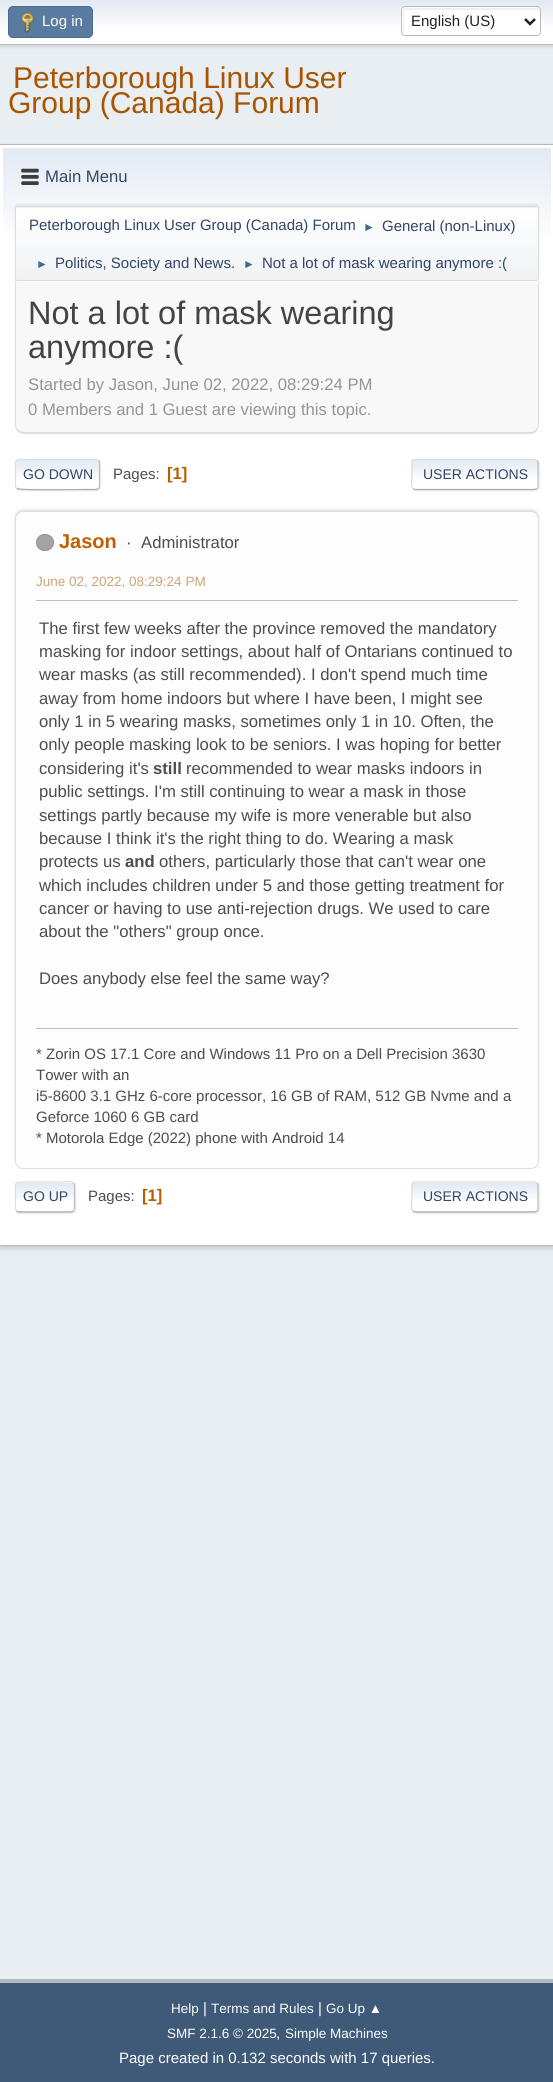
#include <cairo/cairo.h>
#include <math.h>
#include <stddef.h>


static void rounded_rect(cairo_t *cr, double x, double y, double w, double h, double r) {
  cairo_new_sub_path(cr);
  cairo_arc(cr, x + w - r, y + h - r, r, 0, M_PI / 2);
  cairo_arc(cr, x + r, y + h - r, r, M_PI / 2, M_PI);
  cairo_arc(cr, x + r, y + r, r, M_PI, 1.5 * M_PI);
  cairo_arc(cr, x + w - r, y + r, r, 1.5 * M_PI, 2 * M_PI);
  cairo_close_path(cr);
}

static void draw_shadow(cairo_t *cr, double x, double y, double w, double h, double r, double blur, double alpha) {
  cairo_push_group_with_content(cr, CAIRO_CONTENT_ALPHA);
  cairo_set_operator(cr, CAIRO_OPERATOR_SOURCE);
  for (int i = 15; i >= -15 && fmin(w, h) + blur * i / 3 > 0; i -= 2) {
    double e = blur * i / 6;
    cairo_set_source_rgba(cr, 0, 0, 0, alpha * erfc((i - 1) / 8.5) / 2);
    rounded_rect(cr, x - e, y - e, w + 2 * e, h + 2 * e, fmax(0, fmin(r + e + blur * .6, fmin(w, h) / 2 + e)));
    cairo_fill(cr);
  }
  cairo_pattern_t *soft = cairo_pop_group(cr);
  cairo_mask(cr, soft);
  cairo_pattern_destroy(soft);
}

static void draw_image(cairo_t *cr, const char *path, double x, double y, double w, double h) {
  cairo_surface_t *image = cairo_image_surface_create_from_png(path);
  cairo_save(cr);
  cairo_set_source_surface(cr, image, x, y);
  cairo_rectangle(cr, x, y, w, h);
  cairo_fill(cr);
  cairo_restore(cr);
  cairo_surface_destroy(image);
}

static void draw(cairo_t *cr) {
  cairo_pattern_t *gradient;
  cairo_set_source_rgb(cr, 233 / 255.0, 238 / 255.0, 242 / 255.0);
  cairo_paint(cr);
  cairo_set_source_rgb(cr, 0, 0, 0);
  draw_shadow(cr, 0, 1, 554, 45, 0, 2.5, 0.16);
  gradient = cairo_pattern_create_linear(277, 0, 277, 44);
  cairo_pattern_add_color_stop_rgba(gradient, 0, 226 / 255.0, 233 / 255.0, 243 / 255.0, 1);
  cairo_pattern_add_color_stop_rgba(gradient, 0.7, 1, 1, 1, 1);
  cairo_set_source(cr, gradient);
  cairo_pattern_destroy(gradient);
  cairo_rectangle(cr, 0, 0, 553, 44);
  cairo_fill(cr);
  cairo_set_source_rgb(cr, 187 / 255.0, 187 / 255.0, 187 / 255.0);
  cairo_rectangle(cr, 0, 44, 553, 1);
  cairo_fill(cr);
  cairo_set_source_rgb(cr, 89 / 255.0, 123 / 255.0, 159 / 255.0);
  rounded_rect(cr, 8.5, 6.5, 84, 31, 4.5);
  cairo_fill_preserve(cr);
  cairo_set_source_rgb(cr, 74 / 255.0, 107 / 255.0, 140 / 255.0);
  cairo_set_line_width(cr, 1);
  cairo_stroke(cr);
  draw_image(cr, "images/1.png", 21, 12, 13, 21);
  cairo_set_source_rgb(cr, 1, 1, 1);
  rounded_rect(cr, 401, 6, 140, 30, 4);
  cairo_fill(cr);
  cairo_set_source_rgb(cr, 236 / 255.0, 241 / 255.0, 248 / 255.0);
  cairo_new_path(cr);
  cairo_move_to(cr, 406, 10);
  cairo_line_to(cr, 540, 10);
  cairo_curve_to(cr, 540, 9, 539, 8, 538, 8);
  cairo_line_to(cr, 406, 8);
  cairo_curve_to(cr, 404, 8, 403, 9, 403, 10);
  cairo_line_to(cr, 403, 32);
  cairo_curve_to(cr, 403, 33, 403, 34, 404, 35);
  cairo_line_to(cr, 404, 12);
  cairo_curve_to(cr, 404, 11, 405, 10, 406, 10);
  cairo_close_path(cr);
  cairo_fill(cr);
  rounded_rect(cr, 401.5, 6.5, 139, 29, 3.5);
  cairo_set_source_rgb(cr, 187 / 255.0, 187 / 255.0, 187 / 255.0);
  cairo_stroke(cr);
  cairo_new_path(cr);
  cairo_move_to(cr, 525, 19);
  cairo_line_to(cr, 530, 24);
  cairo_line_to(cr, 535, 19);
  cairo_set_source_rgb(cr, 34 / 255.0, 34 / 255.0, 34 / 255.0);
  cairo_set_line_width(cr, 2.5);
  cairo_stroke(cr);
  cairo_set_source_rgb(cr, 0, 0, 0);
  draw_shadow(cr, 0, 146, 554, 1103, 0, 2, 0.14);
  cairo_set_source_rgb(cr, 1, 1, 1);
  cairo_rectangle(cr, 0, 145, 553, 1100);
  cairo_fill(cr);
  cairo_set_source_rgb(cr, 184 / 255.0, 184 / 255.0, 184 / 255.0);
  cairo_rectangle(cr, 0, 144, 553, 1);
  cairo_fill(cr);
  cairo_rectangle(cr, 0, 1245, 553, 1);
  cairo_fill(cr);
  gradient = cairo_pattern_create_linear(277, 147, 277, 284);
  cairo_pattern_add_color_stop_rgba(gradient, 0, 226 / 255.0, 233 / 255.0, 243 / 255.0, 1);
  cairo_pattern_add_color_stop_rgba(gradient, 0.7, 1, 1, 1, 1);
  cairo_set_source(cr, gradient);
  cairo_pattern_destroy(gradient);
  cairo_rectangle(cr, 3, 148, 548, 87);
  cairo_fill(cr);
  draw_image(cr, "images/2.png", 21, 168, 18, 17);
  cairo_set_source_rgb(cr, 0, 0, 0);
  draw_shadow(cr, 15, 204, 524, 75, 2.5, 1, 0.08);
  cairo_save(cr);
  rounded_rect(cr, 15, 206, 524, 75, 2.5);
  cairo_clip(cr);
  gradient = cairo_pattern_create_linear(277, 135, 277, 208);
  cairo_pattern_add_color_stop_rgba(gradient, 0, 1, 1, 1, 1);
  cairo_pattern_add_color_stop_rgba(gradient, 0.95, 241 / 255.0, 243 / 255.0, 245 / 255.0, 1);
  cairo_set_source(cr, gradient);
  cairo_pattern_destroy(gradient);
  cairo_rectangle(cr, 15, 206, 524, 2);
  cairo_fill(cr);
  cairo_restore(cr);
  gradient = cairo_pattern_create_linear(277, 207, 277, 280);
  cairo_pattern_add_color_stop_rgba(gradient, 0, 1, 1, 1, 1);
  cairo_pattern_add_color_stop_rgba(gradient, 0.95, 241 / 255.0, 243 / 255.0, 245 / 255.0, 1);
  cairo_set_source(cr, gradient);
  cairo_pattern_destroy(gradient);
  cairo_rectangle(cr, 15, 208, 524, 72);
  cairo_fill(cr);
  rounded_rect(cr, 15.5, 206.5, 523, 74, 2);
  cairo_set_source_rgb(cr, 221 / 255.0, 221 / 255.0, 221 / 255.0);
  cairo_set_line_width(cr, 1);
  cairo_stroke(cr);
  cairo_set_source_rgb(cr, 248 / 255.0, 248 / 255.0, 248 / 255.0);
  cairo_new_path(cr);
  cairo_move_to(cr, 15, 281);
  cairo_line_to(cr, 539, 281);
  cairo_line_to(cr, 539, 425);
  cairo_curve_to(cr, 539, 430, 535, 434, 530, 434);
  cairo_line_to(cr, 24, 434);
  cairo_curve_to(cr, 19, 434, 15, 430, 15, 425);
  cairo_close_path(cr);
  cairo_fill(cr);
  cairo_set_source_rgb(cr, 221 / 255.0, 221 / 255.0, 221 / 255.0);
  cairo_set_fill_rule(cr, CAIRO_FILL_RULE_EVEN_ODD);
  cairo_new_path(cr);
  cairo_move_to(cr, 15, 281);
  cairo_line_to(cr, 539, 281);
  cairo_line_to(cr, 539, 425);
  cairo_curve_to(cr, 539, 430, 535, 434, 530, 434);
  cairo_line_to(cr, 24, 434);
  cairo_curve_to(cr, 19, 434, 15, 430, 15, 425);
  cairo_close_path(cr);
  cairo_move_to(cr, 16, 281);
  cairo_line_to(cr, 538, 281);
  cairo_line_to(cr, 538, 425);
  cairo_curve_to(cr, 538, 429, 534, 432, 530, 432);
  cairo_line_to(cr, 24, 432);
  cairo_curve_to(cr, 20, 432, 16, 429, 16, 425);
  cairo_close_path(cr);
  cairo_fill(cr);
  cairo_set_source_rgb(cr, 221 / 255.0, 221 / 255.0, 221 / 255.0);
  draw_shadow(cr, 16, 460, 85, 31, 4, 0.5, 0.57);
  cairo_set_source_rgb(cr, 1, 1, 1);
  rounded_rect(cr, 15, 459, 85, 31, 4);
  cairo_fill(cr);
  cairo_save(cr);
  cairo_set_fill_rule(cr, CAIRO_FILL_RULE_WINDING);
  rounded_rect(cr, 15, 459, 85, 31, 4);
  cairo_clip(cr);
  gradient = cairo_pattern_create_linear(58, 460, 58, 489);
  cairo_pattern_add_color_stop_rgba(gradient, 0, 226 / 255.0, 233 / 255.0, 243 / 255.0, 1);
  cairo_pattern_add_color_stop_rgba(gradient, 0.7, 1, 1, 1, 1);
  cairo_set_source(cr, gradient);
  cairo_pattern_destroy(gradient);
  cairo_rectangle(cr, 15, 460, 85, 29);
  cairo_fill(cr);
  gradient = cairo_pattern_create_linear(58, 489, 58, 518);
  cairo_pattern_add_color_stop_rgba(gradient, 0, 226 / 255.0, 233 / 255.0, 243 / 255.0, 1);
  cairo_pattern_add_color_stop_rgba(gradient, 0.7, 1, 1, 1, 1);
  cairo_set_source(cr, gradient);
  cairo_pattern_destroy(gradient);
  cairo_rectangle(cr, 15, 489, 85, 1);
  cairo_fill(cr);
  cairo_restore(cr);
  cairo_new_path(cr);
  cairo_move_to(cr, 98.5, 460.5);
  cairo_curve_to(cr, 99, 461, 99.5, 461.5, 99.5, 462.5);
  cairo_line_to(cr, 99.5, 486);
  cairo_curve_to(cr, 99.5, 487, 99, 488, 98.5, 488.5);
  cairo_set_source_rgb(cr, 187 / 255.0, 187 / 255.0, 187 / 255.0);
  cairo_set_line_width(cr, 1.2);
  cairo_stroke(cr);
  cairo_new_path(cr);
  cairo_move_to(cr, 98.5, 488.5);
  cairo_line_to(cr, 96, 489.5);
  cairo_line_to(cr, 83.5, 489.5);
  cairo_curve_to(cr, 76, 489.5, 19, 490.5, 17, 488.5);
  cairo_line_to(cr, 16.5, 488.5);
  cairo_set_source_rgb(cr, 170 / 255.0, 170 / 255.0, 170 / 255.0);
  cairo_stroke(cr);
  cairo_save(cr);
  cairo_set_fill_rule(cr, CAIRO_FILL_RULE_WINDING);
  cairo_rectangle(cr, 15, 453, 524, 43);
  cairo_clip(cr);
  cairo_new_path(cr);
  cairo_move_to(cr, 16.5, 488.5);
  cairo_curve_to(cr, 14.5, 486.5, 15.5, 477, 15.5, 474.5);
  cairo_curve_to(cr, 15.5, 456.5, 13, 459.5, 31.5, 459.5);
  cairo_line_to(cr, 96, 459.5);
  cairo_line_to(cr, 98.5, 460.5);
  cairo_set_source_rgb(cr, 221 / 255.0, 221 / 255.0, 221 / 255.0);
  cairo_stroke(cr);
  cairo_restore(cr);
  cairo_save(cr);
  cairo_new_path(cr);
  cairo_move_to(cr, 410, 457);
  cairo_line_to(cr, 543, 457);
  cairo_line_to(cr, 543, 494);
  cairo_line_to(cr, 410, 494);
  cairo_close_path(cr);
  cairo_move_to(cr, 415, 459);
  cairo_line_to(cr, 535, 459);
  cairo_curve_to(cr, 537, 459, 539, 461, 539, 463);
  cairo_line_to(cr, 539, 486);
  cairo_curve_to(cr, 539, 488, 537, 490, 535, 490);
  cairo_line_to(cr, 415, 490);
  cairo_curve_to(cr, 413, 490, 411, 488, 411, 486);
  cairo_line_to(cr, 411, 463);
  cairo_curve_to(cr, 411, 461, 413, 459, 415, 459);
  cairo_close_path(cr);
  cairo_clip(cr);
  cairo_set_source_rgb(cr, 221 / 255.0, 221 / 255.0, 221 / 255.0);
  draw_shadow(cr, 413, 460, 127, 31, 4, 0.5, 0.57);
  cairo_restore(cr);
  cairo_set_source_rgb(cr, 1, 1, 1);
  rounded_rect(cr, 411, 459, 128, 31, 4);
  cairo_fill(cr);
  cairo_save(cr);
  cairo_set_fill_rule(cr, CAIRO_FILL_RULE_WINDING);
  rounded_rect(cr, 411, 459, 128, 31, 4);
  cairo_clip(cr);
  gradient = cairo_pattern_create_linear(475, 460, 475, 489);
  cairo_pattern_add_color_stop_rgba(gradient, 0, 226 / 255.0, 233 / 255.0, 243 / 255.0, 1);
  cairo_pattern_add_color_stop_rgba(gradient, 0.7, 1, 1, 1, 1);
  cairo_set_source(cr, gradient);
  cairo_pattern_destroy(gradient);
  cairo_rectangle(cr, 411, 460, 128, 29);
  cairo_fill(cr);
  gradient = cairo_pattern_create_linear(475, 489, 475, 518);
  cairo_pattern_add_color_stop_rgba(gradient, 0, 226 / 255.0, 233 / 255.0, 243 / 255.0, 1);
  cairo_pattern_add_color_stop_rgba(gradient, 0.7, 1, 1, 1, 1);
  cairo_set_source(cr, gradient);
  cairo_pattern_destroy(gradient);
  cairo_rectangle(cr, 411, 489, 128, 1);
  cairo_fill(cr);
  cairo_restore(cr);
  cairo_new_path(cr);
  cairo_move_to(cr, 537, 460.5);
  cairo_curve_to(cr, 538, 461, 538, 461.5, 538, 462.5);
  cairo_line_to(cr, 538, 486);
  cairo_curve_to(cr, 538, 487, 538, 488, 537, 488.5);
  cairo_set_source_rgb(cr, 187 / 255.0, 187 / 255.0, 187 / 255.0);
  cairo_stroke(cr);
  cairo_new_path(cr);
  cairo_move_to(cr, 537, 488.5);
  cairo_line_to(cr, 535, 489.5);
  cairo_line_to(cr, 415, 489.5);
  cairo_line_to(cr, 413, 488.5);
  cairo_set_source_rgb(cr, 170 / 255.0, 170 / 255.0, 170 / 255.0);
  cairo_stroke(cr);
  cairo_new_path(cr);
  cairo_move_to(cr, 413, 488.5);
  cairo_curve_to(cr, 410.5, 486.5, 412, 477, 412, 474.5);
  cairo_line_to(cr, 412, 466.5);
  cairo_curve_to(cr, 412, 464, 411, 459.5, 415, 459.5);
  cairo_line_to(cr, 535, 459.5);
  cairo_line_to(cr, 537, 460.5);
  cairo_set_source_rgb(cr, 221 / 255.0, 221 / 255.0, 221 / 255.0);
  cairo_stroke(cr);
  cairo_set_source_rgb(cr, 0, 0, 0);
  draw_shadow(cr, 15, 509, 524, 657, 8, 1, 0.1);
  cairo_set_source_rgb(cr, 253 / 255.0, 253 / 255.0, 253 / 255.0);
  rounded_rect(cr, 15.5, 511.5, 523, 657, 7.5);
  cairo_fill_preserve(cr);
  cairo_set_source_rgb(cr, 221 / 255.0, 221 / 255.0, 221 / 255.0);
  cairo_set_line_width(cr, 1);
  cairo_stroke(cr);
  cairo_set_source_rgb(cr, 167 / 255.0, 162 / 255.0, 162 / 255.0);
  rounded_rect(cr, 36.5, 534.5, 17, 16, 8);
  cairo_fill_preserve(cr);
  cairo_set_source_rgb(cr, 150 / 255.0, 146 / 255.0, 146 / 255.0);
  cairo_stroke(cr);
  cairo_set_source_rgb(cr, 191 / 255.0, 191 / 255.0, 191 / 255.0);
  cairo_rectangle(cr, 36, 600, 482, 1);
  cairo_fill(cr);
  cairo_rectangle(cr, 36, 1028, 482, 1);
  cairo_fill(cr);
  cairo_set_source_rgb(cr, 221 / 255.0, 221 / 255.0, 221 / 255.0);
  draw_shadow(cr, 16, 1183, 60, 31, 4, 0.5, 0.57);
  cairo_set_source_rgb(cr, 1, 1, 1);
  rounded_rect(cr, 15, 1181, 60, 32, 4);
  cairo_fill(cr);
  cairo_save(cr);
  cairo_set_fill_rule(cr, CAIRO_FILL_RULE_WINDING);
  rounded_rect(cr, 15, 1181, 60, 32, 4);
  cairo_clip(cr);
  gradient = cairo_pattern_create_linear(45, 1183, 45, 1211);
  cairo_pattern_add_color_stop_rgba(gradient, 0, 226 / 255.0, 233 / 255.0, 243 / 255.0, 1);
  cairo_pattern_add_color_stop_rgba(gradient, 0.7, 1, 1, 1, 1);
  cairo_set_source(cr, gradient);
  cairo_pattern_destroy(gradient);
  cairo_rectangle(cr, 15, 1183, 60, 28);
  cairo_fill(cr);
  gradient = cairo_pattern_create_linear(45, 1211, 45, 1240);
  cairo_pattern_add_color_stop_rgba(gradient, 0, 226 / 255.0, 233 / 255.0, 243 / 255.0, 1);
  cairo_pattern_add_color_stop_rgba(gradient, 0.7, 1, 1, 1, 1);
  cairo_set_source(cr, gradient);
  cairo_pattern_destroy(gradient);
  cairo_rectangle(cr, 15, 1211, 60, 2);
  cairo_fill(cr);
  cairo_restore(cr);
  cairo_new_path(cr);
  cairo_move_to(cr, 73.5, 1183);
  cairo_curve_to(cr, 74, 1183.5, 74.5, 1184, 74.5, 1185);
  cairo_line_to(cr, 74.5, 1209);
  cairo_curve_to(cr, 74.5, 1209.5, 74, 1210.5, 73.5, 1211);
  cairo_set_source_rgb(cr, 187 / 255.0, 187 / 255.0, 187 / 255.0);
  cairo_set_line_width(cr, 1.2);
  cairo_stroke(cr);
  cairo_new_path(cr);
  cairo_move_to(cr, 73.5, 1211);
  cairo_line_to(cr, 71.5, 1212);
  cairo_line_to(cr, 18.5, 1212);
  cairo_line_to(cr, 16.5, 1211);
  cairo_set_source_rgb(cr, 170 / 255.0, 170 / 255.0, 170 / 255.0);
  cairo_stroke(cr);
  cairo_save(cr);
  cairo_set_fill_rule(cr, CAIRO_FILL_RULE_WINDING);
  cairo_rectangle(cr, 15, 1175, 524, 44);
  cairo_clip(cr);
  cairo_new_path(cr);
  cairo_move_to(cr, 16.5, 1211);
  cairo_curve_to(cr, 14.5, 1209, 15.5, 1199.5, 15.5, 1197);
  cairo_curve_to(cr, 15.5, 1181, 12.5, 1182, 27.5, 1182);
  cairo_line_to(cr, 62.5, 1182);
  cairo_curve_to(cr, 62.5, 1182, 71, 1180.5, 73.5, 1183);
  cairo_set_source_rgb(cr, 221 / 255.0, 221 / 255.0, 221 / 255.0);
  cairo_stroke(cr);
  cairo_restore(cr);
  cairo_set_source_rgb(cr, 221 / 255.0, 221 / 255.0, 221 / 255.0);
  draw_shadow(cr, 413, 1183, 127, 31, 4, 0.5, 0.57);
  cairo_set_source_rgb(cr, 1, 1, 1);
  rounded_rect(cr, 411, 1181, 128, 32, 4);
  cairo_fill(cr);
  cairo_save(cr);
  cairo_set_fill_rule(cr, CAIRO_FILL_RULE_WINDING);
  rounded_rect(cr, 411, 1181, 128, 32, 4);
  cairo_clip(cr);
  gradient = cairo_pattern_create_linear(475, 1183, 475, 1211);
  cairo_pattern_add_color_stop_rgba(gradient, 0, 226 / 255.0, 233 / 255.0, 243 / 255.0, 1);
  cairo_pattern_add_color_stop_rgba(gradient, 0.7, 1, 1, 1, 1);
  cairo_set_source(cr, gradient);
  cairo_pattern_destroy(gradient);
  cairo_rectangle(cr, 411, 1183, 128, 28);
  cairo_fill(cr);
  gradient = cairo_pattern_create_linear(475, 1211, 475, 1240);
  cairo_pattern_add_color_stop_rgba(gradient, 0, 226 / 255.0, 233 / 255.0, 243 / 255.0, 1);
  cairo_pattern_add_color_stop_rgba(gradient, 0.7, 1, 1, 1, 1);
  cairo_set_source(cr, gradient);
  cairo_pattern_destroy(gradient);
  cairo_rectangle(cr, 411, 1211, 128, 2);
  cairo_fill(cr);
  cairo_restore(cr);
  cairo_new_path(cr);
  cairo_move_to(cr, 537, 1183);
  cairo_curve_to(cr, 538, 1183.5, 538, 1184, 538, 1185);
  cairo_line_to(cr, 538, 1209);
  cairo_curve_to(cr, 538, 1209.5, 538, 1210.5, 537, 1211);
  cairo_set_source_rgb(cr, 187 / 255.0, 187 / 255.0, 187 / 255.0);
  cairo_stroke(cr);
  cairo_new_path(cr);
  cairo_move_to(cr, 537, 1211);
  cairo_line_to(cr, 535, 1212);
  cairo_line_to(cr, 415, 1212);
  cairo_line_to(cr, 413, 1211);
  cairo_set_source_rgb(cr, 170 / 255.0, 170 / 255.0, 170 / 255.0);
  cairo_stroke(cr);
  cairo_new_path(cr);
  cairo_move_to(cr, 413, 1211);
  cairo_curve_to(cr, 410.5, 1209, 412, 1199.5, 412, 1197);
  cairo_line_to(cr, 412, 1189);
  cairo_curve_to(cr, 412, 1186.5, 411, 1182, 415, 1182);
  cairo_line_to(cr, 535, 1182);
  cairo_line_to(cr, 537, 1183);
  cairo_set_source_rgb(cr, 221 / 255.0, 221 / 255.0, 221 / 255.0);
  cairo_stroke(cr);
  cairo_set_source_rgb(cr, 62 / 255.0, 90 / 255.0, 120 / 255.0);
  cairo_rectangle(cr, 0, 1983, 553, 99);
  cairo_fill(cr);
  cairo_set_source_rgb(cr, 178 / 255.0, 182 / 255.0, 189 / 255.0);
  cairo_rectangle(cr, 0, 1979, 553, 4);
  cairo_fill(cr);
  cairo_select_font_face(cr, "Liberation Sans", CAIRO_FONT_SLANT_NORMAL, CAIRO_FONT_WEIGHT_NORMAL);
  cairo_set_font_size(cr, 15);
  cairo_set_source_rgb(cr, 1, 1, 1);
  cairo_move_to(cr, 42, 26);
  cairo_show_text(cr, "Log in");
  cairo_set_source_rgb(cr, 34 / 255.0, 34 / 255.0, 34 / 255.0);
  cairo_move_to(cr, 411, 26);
  cairo_show_text(cr, "English (US)");
  cairo_set_font_size(cr, 30);
  cairo_set_source_rgb(cr, 168 / 255.0, 84 / 255.0, 0);
  cairo_move_to(cr, 13, 88);
  cairo_show_text(cr, "Peterborough Linux User");
  cairo_move_to(cr, 8, 113);
  cairo_show_text(cr, "Group (Canada) Forum");
  cairo_set_font_size(cr, 16.7);
  cairo_set_source_rgb(cr, 51 / 255.0, 68 / 255.0, 102 / 255.0);
  cairo_move_to(cr, 45, 182);
  cairo_show_text(cr, "Main Menu");
  cairo_set_font_size(cr, 15);
  cairo_move_to(cr, 29, 230);
  cairo_show_text(cr, "Peterborough Linux User Group (Canada) Forum");
  cairo_set_font_size(cr, 12);
  cairo_set_source_rgb(cr, 63 / 255.0, 107 / 255.0, 140 / 255.0);
  cairo_move_to(cr, 363, 231);
  cairo_show_text(cr, "►");
  cairo_set_font_size(cr, 15);
  cairo_set_source_rgb(cr, 51 / 255.0, 68 / 255.0, 102 / 255.0);
  cairo_move_to(cr, 382, 231);
  cairo_show_text(cr, "General (non-Linux)");
  cairo_set_font_size(cr, 12);
  cairo_set_source_rgb(cr, 63 / 255.0, 107 / 255.0, 140 / 255.0);
  cairo_move_to(cr, 36, 268);
  cairo_show_text(cr, "►");
  cairo_set_font_size(cr, 15);
  cairo_set_source_rgb(cr, 51 / 255.0, 68 / 255.0, 102 / 255.0);
  cairo_move_to(cr, 55, 268);
  cairo_show_text(cr, "Politics, Society and News.");
  cairo_set_font_size(cr, 12);
  cairo_set_source_rgb(cr, 63 / 255.0, 107 / 255.0, 140 / 255.0);
  cairo_move_to(cr, 243, 268);
  cairo_show_text(cr, "►");
  cairo_set_font_size(cr, 15);
  cairo_set_source_rgb(cr, 51 / 255.0, 68 / 255.0, 102 / 255.0);
  cairo_move_to(cr, 262, 268);
  cairo_show_text(cr, "Not a lot of mask wearing anymore :(");
  cairo_set_font_size(cr, 32.5);
  cairo_set_source_rgb(cr, 68 / 255.0, 68 / 255.0, 68 / 255.0);
  cairo_move_to(cr, 28, 324);
  cairo_show_text(cr, "Not a lot of mask wearing");
  cairo_move_to(cr, 28, 358);
  cairo_show_text(cr, "anymore :(");
  cairo_set_font_size(cr, 16.7);
  cairo_set_source_rgb(cr, 149 / 255.0, 149 / 255.0, 149 / 255.0);
  cairo_move_to(cr, 28, 390);
  cairo_show_text(cr, "Started by Jason, June 02, 2022, 08:29:24 PM");
  cairo_move_to(cr, 28, 415);
  cairo_show_text(cr, "0 Members and 1 Guest are viewing this topic.");
  cairo_set_font_size(cr, 14);
  cairo_set_source_rgb(cr, 51 / 255.0, 68 / 255.0, 102 / 255.0);
  cairo_move_to(cr, 23, 479);
  cairo_show_text(cr, "GO DOWN");
  cairo_set_font_size(cr, 15);
  cairo_set_source_rgb(cr, 77 / 255.0, 77 / 255.0, 77 / 255.0);
  cairo_move_to(cr, 113, 479);
  cairo_show_text(cr, "Pages:");
  cairo_select_font_face(cr, "Liberation Sans", CAIRO_FONT_SLANT_NORMAL, CAIRO_FONT_WEIGHT_BOLD);
  cairo_set_font_size(cr, 16.7);
  cairo_set_source_rgb(cr, 180 / 255.0, 97 / 255.0, 0);
  cairo_move_to(cr, 167, 479);
  cairo_show_text(cr, "[1]");
  cairo_select_font_face(cr, "Liberation Sans", CAIRO_FONT_SLANT_NORMAL, CAIRO_FONT_WEIGHT_NORMAL);
  cairo_set_font_size(cr, 14);
  cairo_set_source_rgb(cr, 51 / 255.0, 68 / 255.0, 102 / 255.0);
  cairo_move_to(cr, 423, 479);
  cairo_show_text(cr, "USER ACTIONS");
  cairo_select_font_face(cr, "Liberation Sans", CAIRO_FONT_SLANT_NORMAL, CAIRO_FONT_WEIGHT_BOLD);
  cairo_set_font_size(cr, 20);
  cairo_set_source_rgb(cr, 192 / 255.0, 96 / 255.0, 2 / 255.0);
  cairo_move_to(cr, 59, 548);
  cairo_show_text(cr, "Jason");
  cairo_select_font_face(cr, "Liberation Sans", CAIRO_FONT_SLANT_NORMAL, CAIRO_FONT_WEIGHT_NORMAL);
  cairo_set_font_size(cr, 16.7);
  cairo_set_source_rgb(cr, 77 / 255.0, 77 / 255.0, 77 / 255.0);
  cairo_move_to(cr, 126, 548);
  cairo_show_text(cr, "·");
  cairo_move_to(cr, 141, 548);
  cairo_show_text(cr, "Administrator");
  cairo_set_font_size(cr, 13.5);
  cairo_set_source_rgb(cr, 205 / 255.0, 164 / 255.0, 123 / 255.0);
  cairo_move_to(cr, 36, 586);
  cairo_show_text(cr, "June 02, 2022, 08:29:24 PM");
  cairo_set_font_size(cr, 16.7);
  cairo_set_source_rgb(cr, 77 / 255.0, 77 / 255.0, 77 / 255.0);
  cairo_move_to(cr, 39, 634);
  cairo_show_text(cr, "The first few weeks after the province removed the mandatory");
  cairo_move_to(cr, 39, 657);
  cairo_show_text(cr, "masking for indoor settings, about half of Ontarians continued to");
  cairo_move_to(cr, 39, 680);
  cairo_show_text(cr, "wear masks (as still recommended). I don't spend much time");
  cairo_move_to(cr, 39, 704);
  cairo_show_text(cr, "away from home indoors but where I have been, I might see");
  cairo_move_to(cr, 39, 727);
  cairo_show_text(cr, "only 1 in 5 wearing masks, sometimes only 1 in 10. Often, the");
  cairo_move_to(cr, 39, 750);
  cairo_show_text(cr, "only people masking look to be seniors. I was hoping for better");
  cairo_move_to(cr, 39, 774);
  cairo_show_text(cr, "considering it's");
  cairo_select_font_face(cr, "Liberation Sans", CAIRO_FONT_SLANT_NORMAL, CAIRO_FONT_WEIGHT_BOLD);
  cairo_move_to(cr, 153, 774);
  cairo_show_text(cr, "still");
  cairo_select_font_face(cr, "Liberation Sans", CAIRO_FONT_SLANT_NORMAL, CAIRO_FONT_WEIGHT_NORMAL);
  cairo_move_to(cr, 186, 774);
  cairo_show_text(cr, "recommended to wear masks indoors in");
  cairo_move_to(cr, 39, 797);
  cairo_show_text(cr, "public settings. I'm still continuing to wear a mask in those");
  cairo_move_to(cr, 39, 821);
  cairo_show_text(cr, "settings partly because my wife is more venerable but also");
  cairo_move_to(cr, 39, 844);
  cairo_show_text(cr, "because I think it's the right thing to do. Wearing a mask");
  cairo_move_to(cr, 39, 867);
  cairo_show_text(cr, "protects us");
  cairo_select_font_face(cr, "Liberation Sans", CAIRO_FONT_SLANT_NORMAL, CAIRO_FONT_WEIGHT_BOLD);
  cairo_move_to(cr, 125, 867);
  cairo_show_text(cr, "and");
  cairo_select_font_face(cr, "Liberation Sans", CAIRO_FONT_SLANT_NORMAL, CAIRO_FONT_WEIGHT_NORMAL);
  cairo_move_to(cr, 159, 867);
  cairo_show_text(cr, "others, particularly those that can't wear one");
  cairo_move_to(cr, 39, 891);
  cairo_show_text(cr, "which includes children under 5 and those getting treatment for");
  cairo_move_to(cr, 39, 914);
  cairo_show_text(cr, "cancer or having to use anti-rejection drugs. We used to care");
  cairo_move_to(cr, 39, 937);
  cairo_show_text(cr, "about the \"others\" group once.");
  cairo_move_to(cr, 39, 984);
  cairo_show_text(cr, "Does anybody else feel the same way?");
  cairo_set_font_size(cr, 15);
  cairo_move_to(cr, 36, 1059);
  cairo_show_text(cr, "* Zorin OS 17.1 Core and Windows 11 Pro on a Dell Precision 3630");
  cairo_move_to(cr, 36, 1080);
  cairo_show_text(cr, "Tower with an");
  cairo_move_to(cr, 36, 1101);
  cairo_show_text(cr, "i5-8600 3.1 GHz 6-core processor, 16 GB of RAM, 512 GB Nvme and a");
  cairo_move_to(cr, 36, 1122);
  cairo_show_text(cr, "Geforce 1060 6 GB card");
  cairo_move_to(cr, 36, 1143);
  cairo_show_text(cr, "* Motorola Edge (2022) phone with Android 14");
  cairo_set_font_size(cr, 14);
  cairo_set_source_rgb(cr, 51 / 255.0, 68 / 255.0, 102 / 255.0);
  cairo_move_to(cr, 23, 1201);
  cairo_show_text(cr, "GO UP");
  cairo_set_font_size(cr, 15);
  cairo_set_source_rgb(cr, 77 / 255.0, 77 / 255.0, 77 / 255.0);
  cairo_move_to(cr, 88, 1201);
  cairo_show_text(cr, "Pages:");
  cairo_select_font_face(cr, "Liberation Sans", CAIRO_FONT_SLANT_NORMAL, CAIRO_FONT_WEIGHT_BOLD);
  cairo_set_font_size(cr, 16.7);
  cairo_set_source_rgb(cr, 180 / 255.0, 97 / 255.0, 0);
  cairo_move_to(cr, 142, 1201);
  cairo_show_text(cr, "[1]");
  cairo_select_font_face(cr, "Liberation Sans", CAIRO_FONT_SLANT_NORMAL, CAIRO_FONT_WEIGHT_NORMAL);
  cairo_set_font_size(cr, 14);
  cairo_set_source_rgb(cr, 51 / 255.0, 68 / 255.0, 102 / 255.0);
  cairo_move_to(cr, 423, 1201);
  cairo_show_text(cr, "USER ACTIONS");
  cairo_set_font_size(cr, 13.5);
  cairo_set_source_rgb(cr, 1, 1, 1);
  cairo_move_to(cr, 171, 2013);
  cairo_show_text(cr, "Help");
  cairo_set_font_size(cr, 15);
  cairo_move_to(cr, 203, 2013);
  cairo_show_text(cr, "|");
  cairo_set_font_size(cr, 13.5);
  cairo_move_to(cr, 211, 2013);
  cairo_show_text(cr, "Terms and Rules");
  cairo_set_font_size(cr, 15);
  cairo_move_to(cr, 318, 2013);
  cairo_show_text(cr, "|");
  cairo_set_font_size(cr, 13.5);
  cairo_move_to(cr, 326, 2013);
  cairo_show_text(cr, "Go Up ▲");
  cairo_move_to(cr, 167, 2038);
  cairo_show_text(cr, "SMF 2.1.6 © 2025");
  cairo_set_font_size(cr, 15);
  cairo_move_to(cr, 276, 2038);
  cairo_show_text(cr, ",");
  cairo_set_font_size(cr, 13.5);
  cairo_move_to(cr, 285, 2038);
  cairo_show_text(cr, "Simple Machines");
  cairo_set_font_size(cr, 15);
  cairo_move_to(cr, 119, 2063);
  cairo_show_text(cr, "Page created in 0.132 seconds with 17 queries.");
}

int main(void) {
  cairo_surface_t *surface = cairo_image_surface_create(CAIRO_FORMAT_RGB24, 553, 2082);
  cairo_t *cr = cairo_create(surface);
  cairo_font_options_t *options = cairo_font_options_create();
  cairo_font_options_set_hint_metrics(options, CAIRO_HINT_METRICS_OFF);
  cairo_font_options_set_hint_style(options, CAIRO_HINT_STYLE_NONE);
  cairo_set_font_options(cr, options);
  cairo_set_miter_limit(cr, 4);
  draw(cr);
  cairo_surface_write_to_png(surface, "out.png");
  cairo_font_options_destroy(options);
  cairo_destroy(cr);
  cairo_surface_destroy(surface);
  return 0;
}
